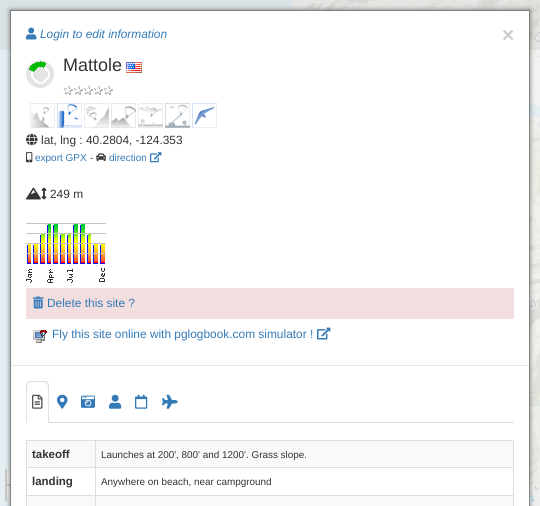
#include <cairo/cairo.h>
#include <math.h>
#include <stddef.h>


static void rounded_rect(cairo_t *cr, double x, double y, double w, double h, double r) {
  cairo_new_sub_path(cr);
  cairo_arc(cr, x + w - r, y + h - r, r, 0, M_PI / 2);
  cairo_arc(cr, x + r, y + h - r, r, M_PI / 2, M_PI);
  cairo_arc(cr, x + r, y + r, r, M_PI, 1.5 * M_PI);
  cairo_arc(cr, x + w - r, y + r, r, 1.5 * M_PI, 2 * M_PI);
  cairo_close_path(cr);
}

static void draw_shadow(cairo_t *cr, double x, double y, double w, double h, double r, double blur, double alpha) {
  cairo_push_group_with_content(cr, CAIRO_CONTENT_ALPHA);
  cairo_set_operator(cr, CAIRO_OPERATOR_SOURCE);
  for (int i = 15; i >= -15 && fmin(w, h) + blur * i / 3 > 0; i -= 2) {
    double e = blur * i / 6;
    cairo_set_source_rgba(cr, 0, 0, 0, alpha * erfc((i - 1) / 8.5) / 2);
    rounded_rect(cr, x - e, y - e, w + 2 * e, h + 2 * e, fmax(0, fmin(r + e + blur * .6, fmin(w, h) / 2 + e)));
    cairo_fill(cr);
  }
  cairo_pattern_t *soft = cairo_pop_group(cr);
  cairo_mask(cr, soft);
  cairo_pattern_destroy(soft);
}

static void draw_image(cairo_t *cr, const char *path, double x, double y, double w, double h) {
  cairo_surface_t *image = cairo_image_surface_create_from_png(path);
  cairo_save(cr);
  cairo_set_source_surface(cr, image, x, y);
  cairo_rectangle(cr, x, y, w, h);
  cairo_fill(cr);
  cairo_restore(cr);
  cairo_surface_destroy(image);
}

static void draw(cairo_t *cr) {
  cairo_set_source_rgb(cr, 1, 1, 1);
  cairo_paint(cr);
  cairo_set_source_rgb(cr, 228 / 255.0, 238 / 255.0, 243 / 255.0);
  cairo_rectangle(cr, 0, 0, 199, 260);
  cairo_fill(cr);
  draw_image(cr, "images/22.png", 199, 0, 256, 4);
  draw_image(cr, "images/23.png", 455, 0, 85, 4);
  draw_image(cr, "images/24.png", 199, 4, 256, 7);
  draw_image(cr, "images/25.png", 455, 4, 85, 256);
  cairo_set_source_rgba(cr, 182 / 255.0, 174 / 255.0, 174 / 255.0, 0.18);
  cairo_rectangle(cr, 0, 0, 540, 50);
  cairo_fill(cr);
  draw_image(cr, "images/26.png", 0, 260, 11, 246);
  draw_image(cr, "images/27.png", 529, 260, 11, 246);
  rounded_rect(cr, 11, 59, 32, 62, 3);
  cairo_set_source_rgb(cr, 216 / 255.0, 224 / 255.0, 228 / 255.0);
  cairo_stroke(cr);
  rounded_rect(cr, 483, 59, 46, 46, 4);
  cairo_set_source_rgba(cr, 167 / 255.0, 167 / 255.0, 167 / 255.0, 0.2);
  cairo_stroke(cr);
  cairo_set_source_rgb(cr, 236 / 255.0, 240 / 255.0, 243 / 255.0);
  cairo_rectangle(cr, 7, 469, 4, 15);
  cairo_fill(cr);
  cairo_set_source_rgb(cr, 202 / 255.0, 202 / 255.0, 202 / 255.0);
  cairo_rectangle(cr, 5, 469, 2, 17);
  cairo_fill(cr);
  cairo_set_source_rgba(cr, 243 / 255.0, 243 / 255.0, 243 / 255.0, 0.5);
  cairo_rectangle(cr, 7, 486, 4, 15);
  cairo_fill(cr);
  cairo_set_source_rgb(cr, 202 / 255.0, 202 / 255.0, 202 / 255.0);
  cairo_rectangle(cr, 5, 484, 6, 2);
  cairo_fill(cr);
  cairo_rectangle(cr, 5, 484, 2, 17);
  cairo_fill(cr);
  cairo_set_source_rgba(cr, 243 / 255.0, 243 / 255.0, 243 / 255.0, 0.7);
  cairo_rectangle(cr, 529, 490, 11, 16);
  cairo_fill(cr);
  cairo_set_source_rgb(cr, 0, 0, 0);
  draw_shadow(cr, 10, 10, 520, 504, 0, 2.5, 0.5);
  cairo_set_source_rgb(cr, 1, 1, 1);
  cairo_rectangle(cr, 11, 11, 518, 495);
  cairo_fill(cr);
  cairo_select_font_face(cr, "Liberation Sans", CAIRO_FONT_SLANT_NORMAL, CAIRO_FONT_WEIGHT_NORMAL);
  cairo_set_font_size(cr, 11);
  cairo_set_source_rgb(cr, 167 / 255.0, 203 / 255.0, 217 / 255.0);
  cairo_move_to(cr, 529, 502);
  cairo_show_text(cr, "s");
  cairo_rectangle(cr, 10.5, 10.5, 519, 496);
  cairo_set_source_rgba(cr, 0, 0, 0, 0.2);
  cairo_set_line_width(cr, 1);
  cairo_stroke(cr);
  draw_image(cr, "images/21.png", 162, 394, 16, 15);
  draw_image(cr, "images/20.png", 135, 394, 13, 15);
  draw_image(cr, "images/19.png", 109, 394, 13, 15);
  draw_image(cr, "images/18.png", 81, 395, 14, 13);
  draw_image(cr, "images/17.png", 57, 394, 11, 15);
  cairo_set_source_rgb(cr, 221 / 255.0, 221 / 255.0, 221 / 255.0);
  cairo_new_path(cr);
  cairo_move_to(cr, 30, 381);
  cairo_curve_to(cr, 29, 381, 28, 381.5, 27, 382);
  cairo_line_to(cr, 28, 383);
  cairo_curve_to(cr, 29, 381.5, 35.5, 382, 37.5, 382);
  cairo_curve_to(cr, 39.5, 382, 46, 381.5, 47, 383);
  cairo_line_to(cr, 48, 382);
  cairo_curve_to(cr, 47, 381.5, 46, 381, 45, 381);
  cairo_close_path(cr);
  cairo_fill(cr);
  cairo_new_path(cr);
  cairo_move_to(cr, 49, 423);
  cairo_line_to(cr, 49, 385);
  cairo_curve_to(cr, 49, 384, 48, 383, 48, 382);
  cairo_line_to(cr, 47, 383);
  cairo_curve_to(cr, 49, 385, 48, 417, 48, 422);
  cairo_close_path(cr);
  cairo_move_to(cr, 26, 423);
  cairo_line_to(cr, 27, 422);
  cairo_curve_to(cr, 27, 417, 26, 385, 28, 383);
  cairo_line_to(cr, 27, 382);
  cairo_line_to(cr, 26, 385);
  cairo_close_path(cr);
  cairo_fill(cr);
  draw_image(cr, "images/16.png", 32, 394, 11, 15);
  cairo_set_font_size(cr, 9.9);
  cairo_set_source_rgb(cr, 51 / 255.0, 51 / 255.0, 51 / 255.0);
  cairo_move_to(cr, 101, 485);
  cairo_show_text(cr, "Anywhere on beach, near campground");
  cairo_select_font_face(cr, "Liberation Sans", CAIRO_FONT_SLANT_NORMAL, CAIRO_FONT_WEIGHT_BOLD);
  cairo_set_font_size(cr, 11.5);
  cairo_move_to(cr, 32, 485);
  cairo_show_text(cr, "landing");
  cairo_set_source_rgb(cr, 249 / 255.0, 249 / 255.0, 249 / 255.0);
  cairo_rectangle(cr, 27, 441, 486, 26);
  cairo_fill(cr);
  cairo_select_font_face(cr, "Liberation Sans", CAIRO_FONT_SLANT_NORMAL, CAIRO_FONT_WEIGHT_NORMAL);
  cairo_set_font_size(cr, 9.9);
  cairo_set_source_rgb(cr, 51 / 255.0, 51 / 255.0, 51 / 255.0);
  cairo_move_to(cr, 101, 458);
  cairo_show_text(cr, "Launches at 200', 800' and 1200'. Grass slope.");
  cairo_select_font_face(cr, "Liberation Sans", CAIRO_FONT_SLANT_NORMAL, CAIRO_FONT_WEIGHT_BOLD);
  cairo_set_font_size(cr, 11.5);
  cairo_move_to(cr, 32, 458);
  cairo_show_text(cr, "takeoff");
  cairo_set_source_rgb(cr, 221 / 255.0, 221 / 255.0, 221 / 255.0);
  cairo_rectangle(cr, 26, 440, 488, 1);
  cairo_fill(cr);
  cairo_rectangle(cr, 513, 440, 1, 66);
  cairo_fill(cr);
  cairo_rectangle(cr, 95, 467, 419, 1);
  cairo_fill(cr);
  cairo_rectangle(cr, 95, 495, 419, 1);
  cairo_fill(cr);
  cairo_set_source_rgb(cr, 249 / 255.0, 249 / 255.0, 249 / 255.0);
  cairo_rectangle(cr, 27, 496, 486, 10);
  cairo_fill(cr);
  cairo_set_source_rgb(cr, 221 / 255.0, 221 / 255.0, 221 / 255.0);
  cairo_rectangle(cr, 95, 495, 1, 11);
  cairo_fill(cr);
  cairo_rectangle(cr, 26, 440, 1, 66);
  cairo_fill(cr);
  cairo_rectangle(cr, 26, 495, 70, 1);
  cairo_fill(cr);
  cairo_rectangle(cr, 95, 467, 1, 29);
  cairo_fill(cr);
  cairo_rectangle(cr, 26, 467, 70, 1);
  cairo_fill(cr);
  cairo_rectangle(cr, 95, 440, 1, 28);
  cairo_fill(cr);
  cairo_rectangle(cr, 49, 422, 465, 1);
  cairo_fill(cr);
  draw_image(cr, "images/15.png", 317, 327, 14, 13);
  cairo_select_font_face(cr, "Liberation Sans", CAIRO_FONT_SLANT_NORMAL, CAIRO_FONT_WEIGHT_NORMAL);
  cairo_set_font_size(cr, 11.9);
  cairo_set_source_rgb(cr, 51 / 255.0, 122 / 255.0, 183 / 255.0);
  cairo_move_to(cr, 52, 338);
  cairo_show_text(cr, "Fly this site online with pglogbook.com simulator !");
  draw_image(cr, "images/14.png", 33, 330, 14, 13);
  cairo_set_source_rgb(cr, 242 / 255.0, 222 / 255.0, 222 / 255.0);
  cairo_rectangle(cr, 26, 288, 488, 31);
  cairo_fill(cr);
  cairo_set_source_rgb(cr, 51 / 255.0, 122 / 255.0, 183 / 255.0);
  cairo_move_to(cr, 47, 307);
  cairo_show_text(cr, "Delete this site ?");
  draw_image(cr, "images/13.png", 33, 296, 11, 13);
  draw_image(cr, "images/12.png", 26, 223, 80, 60);
  cairo_set_source_rgb(cr, 51 / 255.0, 51 / 255.0, 51 / 255.0);
  cairo_move_to(cr, 50, 198);
  cairo_show_text(cr, "249 m");
  draw_image(cr, "images/11.png", 41, 187, 6, 13);
  draw_image(cr, "images/10.png", 26, 187, 15, 13);
  draw_image(cr, "images/9.png", 150, 152, 12, 11);
  cairo_set_font_size(cr, 10);
  cairo_set_source_rgb(cr, 51 / 255.0, 122 / 255.0, 183 / 255.0);
  cairo_move_to(cr, 109, 161);
  cairo_show_text(cr, "direction");
  draw_image(cr, "images/8.png", 96, 153, 11, 8);
  cairo_set_source_rgb(cr, 51 / 255.0, 51 / 255.0, 51 / 255.0);
  cairo_move_to(cr, 90, 161);
  cairo_show_text(cr, "-");
  cairo_set_source_rgb(cr, 51 / 255.0, 122 / 255.0, 183 / 255.0);
  cairo_move_to(cr, 35, 161);
  cairo_show_text(cr, "export GPX");
  draw_image(cr, "images/7.png", 26, 152, 7, 11);
  cairo_set_font_size(cr, 11.9);
  cairo_set_source_rgb(cr, 51 / 255.0, 51 / 255.0, 51 / 255.0);
  cairo_move_to(cr, 41, 144);
  cairo_show_text(cr, "lat, lng : 40.2804, -124.353");
  draw_image(cr, "images/6.png", 26, 133, 12, 13);
  draw_image(cr, "images/5.png", 30, 103, 187, 25);
  draw_image(cr, "images/4.png", 63, 85, 50, 10);
  draw_image(cr, "images/3.png", 126, 62, 16, 11);
  cairo_set_font_size(cr, 18);
  cairo_move_to(cr, 63, 71);
  cairo_show_text(cr, "Mattole");
  cairo_select_font_face(cr, "Liberation Sans", CAIRO_FONT_SLANT_ITALIC, CAIRO_FONT_WEIGHT_NORMAL);
  cairo_set_font_size(cr, 11.9);
  cairo_set_source_rgb(cr, 51 / 255.0, 122 / 255.0, 183 / 255.0);
  cairo_move_to(cr, 40, 38);
  cairo_show_text(cr, "Login to edit information");
  draw_image(cr, "images/1.png", 26, 27, 11, 13);
  cairo_set_source_rgb(cr, 228 / 255.0, 228 / 255.0, 228 / 255.0);
  cairo_arc(cr, 40, 74, 14, 0, 2 * M_PI);
  cairo_fill(cr);
  draw_image(cr, "images/2.png", 29, 61, 21, 23);
  cairo_select_font_face(cr, "Liberation Sans", CAIRO_FONT_SLANT_NORMAL, CAIRO_FONT_WEIGHT_BOLD);
  cairo_set_font_size(cr, 21);
  cairo_set_source_rgb(cr, 204 / 255.0, 204 / 255.0, 204 / 255.0);
  cairo_move_to(cr, 502, 42);
  cairo_show_text(cr, "×");
  cairo_set_source_rgb(cr, 229 / 255.0, 229 / 255.0, 229 / 255.0);
  cairo_rectangle(cr, 11, 365, 518, 1);
  cairo_fill(cr);
}

int main(void) {
  cairo_surface_t *surface = cairo_image_surface_create(CAIRO_FORMAT_RGB24, 540, 506);
  cairo_t *cr = cairo_create(surface);
  cairo_font_options_t *options = cairo_font_options_create();
  cairo_font_options_set_hint_metrics(options, CAIRO_HINT_METRICS_OFF);
  cairo_font_options_set_hint_style(options, CAIRO_HINT_STYLE_NONE);
  cairo_set_font_options(cr, options);
  cairo_set_miter_limit(cr, 4);
  draw(cr);
  cairo_surface_write_to_png(surface, "out.png");
  cairo_font_options_destroy(options);
  cairo_destroy(cr);
  cairo_surface_destroy(surface);
  return 0;
}
